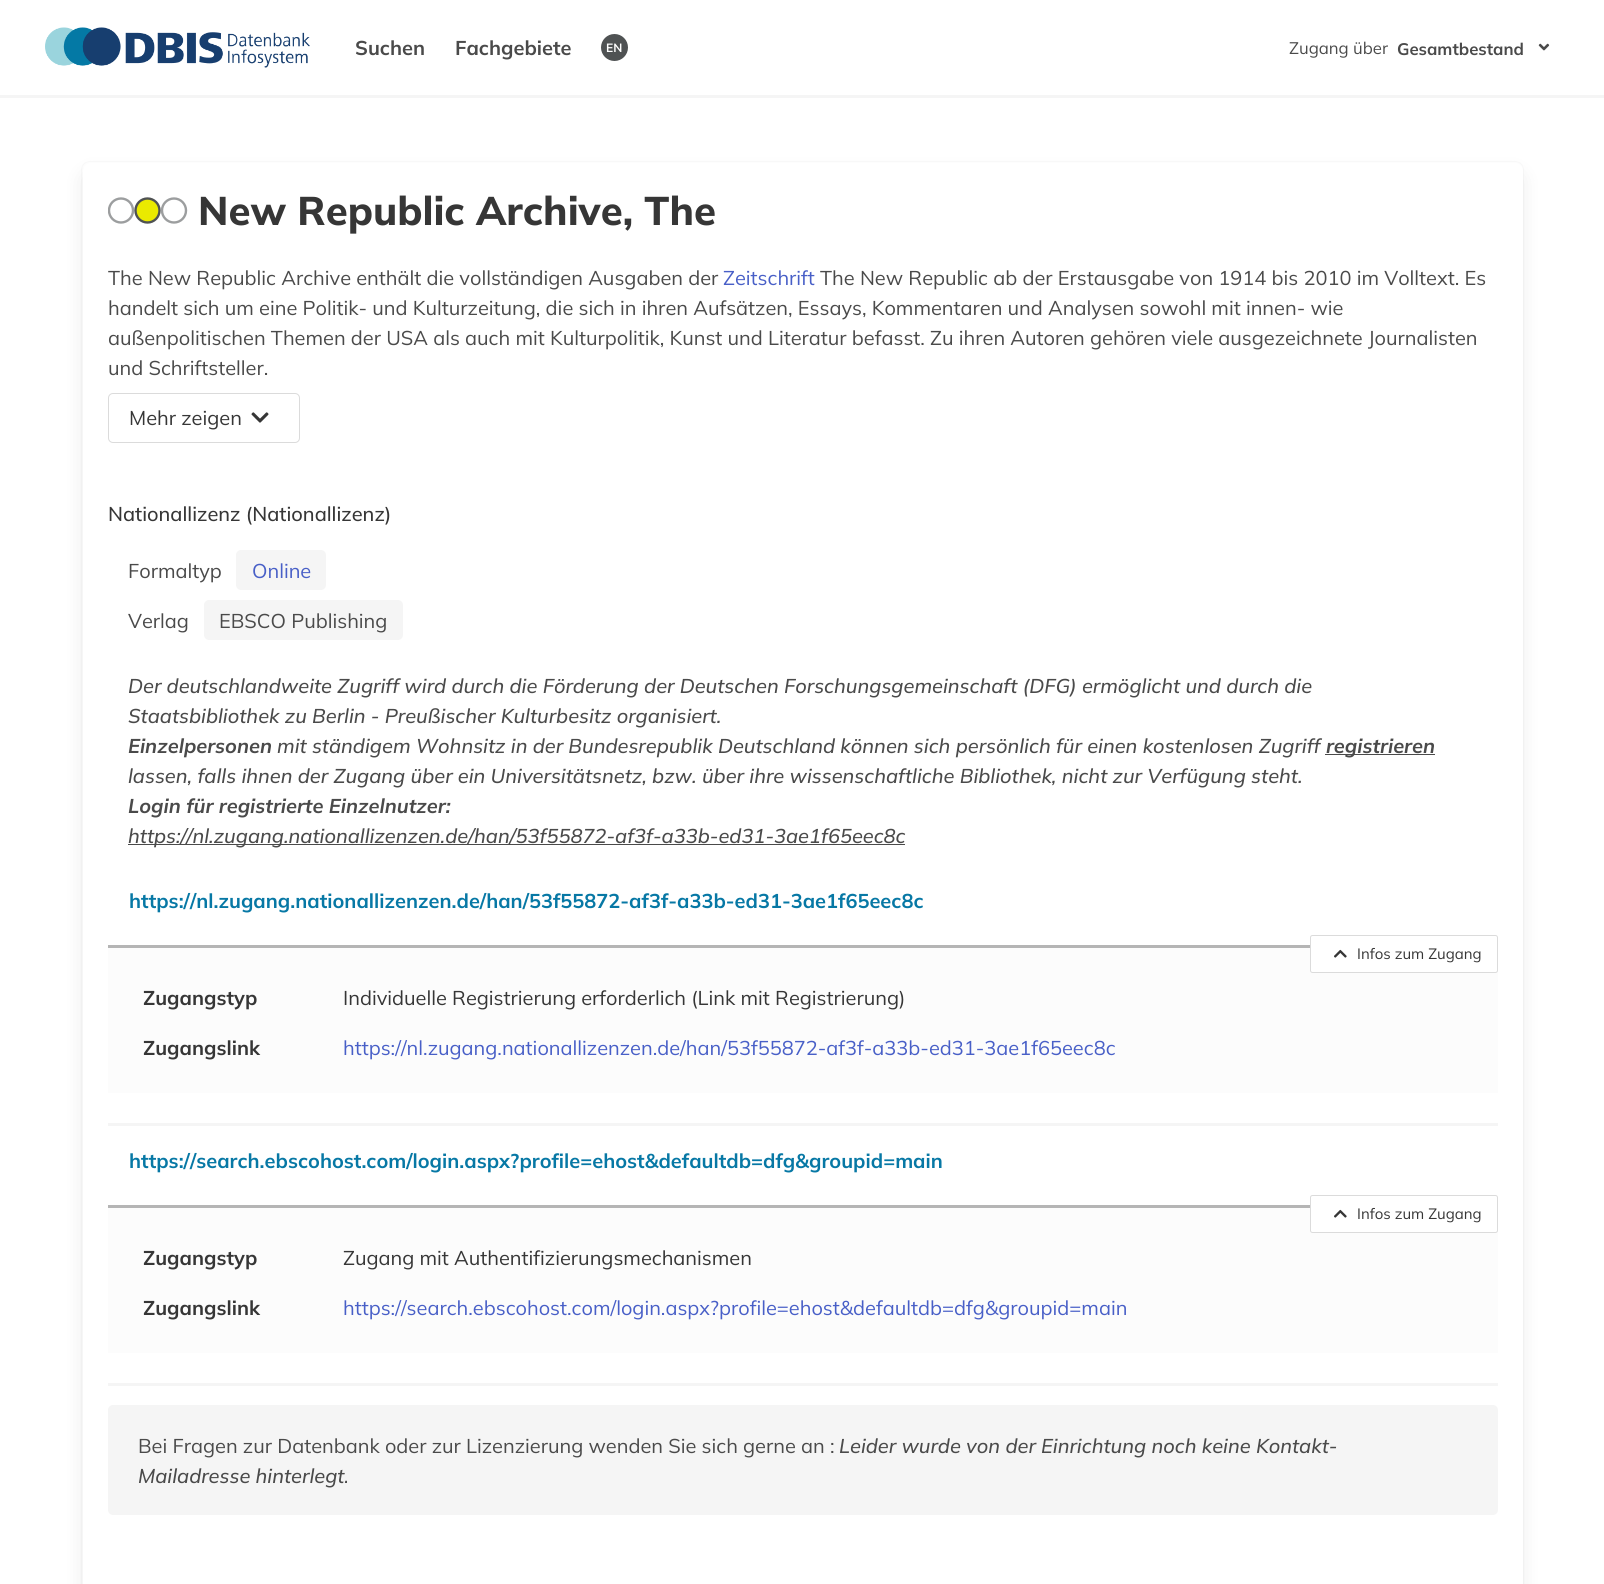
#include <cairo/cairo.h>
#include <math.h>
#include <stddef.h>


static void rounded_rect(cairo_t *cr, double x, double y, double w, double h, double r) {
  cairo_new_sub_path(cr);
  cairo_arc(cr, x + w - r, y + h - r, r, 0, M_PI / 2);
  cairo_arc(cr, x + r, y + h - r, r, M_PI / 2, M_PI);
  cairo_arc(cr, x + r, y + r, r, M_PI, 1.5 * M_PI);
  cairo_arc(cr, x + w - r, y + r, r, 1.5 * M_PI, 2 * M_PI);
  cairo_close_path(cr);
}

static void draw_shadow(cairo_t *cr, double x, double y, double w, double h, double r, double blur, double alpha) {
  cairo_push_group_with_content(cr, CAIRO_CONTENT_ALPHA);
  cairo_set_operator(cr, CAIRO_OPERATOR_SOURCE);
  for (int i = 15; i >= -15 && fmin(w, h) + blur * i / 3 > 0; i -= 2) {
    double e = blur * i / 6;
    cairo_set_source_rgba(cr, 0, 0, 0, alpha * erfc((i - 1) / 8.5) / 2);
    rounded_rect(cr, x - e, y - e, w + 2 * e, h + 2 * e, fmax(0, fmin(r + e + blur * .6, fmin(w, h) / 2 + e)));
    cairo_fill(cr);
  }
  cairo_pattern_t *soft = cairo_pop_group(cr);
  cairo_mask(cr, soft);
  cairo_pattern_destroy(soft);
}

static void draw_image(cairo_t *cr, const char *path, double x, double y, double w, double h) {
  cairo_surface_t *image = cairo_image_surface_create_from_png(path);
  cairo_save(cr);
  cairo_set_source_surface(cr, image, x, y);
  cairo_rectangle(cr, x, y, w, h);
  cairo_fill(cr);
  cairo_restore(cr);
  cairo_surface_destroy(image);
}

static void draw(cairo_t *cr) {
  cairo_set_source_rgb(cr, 1, 1, 1);
  cairo_paint(cr);
  cairo_set_source_rgb(cr, 245 / 255.0, 245 / 255.0, 245 / 255.0);
  cairo_rectangle(cr, 0, 95, 1604, 3);
  cairo_fill(cr);
  draw_image(cr, "images/1.png", 45, 27, 265, 41);
  cairo_set_source_rgb(cr, 79 / 255.0, 82 / 255.0, 83 / 255.0);
  cairo_arc(cr, 614.5, 47.5, 13.5, 0, 2 * M_PI);
  cairo_fill(cr);
  draw_image(cr, "images/2.png", 1538, 43, 12, 8);
  rounded_rect(cr, 81.5, 161.5, 1442, 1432, 8.5);
  cairo_set_source_rgb(cr, 250 / 255.0, 250 / 255.0, 250 / 255.0);
  cairo_set_line_width(cr, 1);
  cairo_stroke(cr);
  cairo_set_source_rgb(cr, 10 / 255.0, 10 / 255.0, 10 / 255.0);
  draw_shadow(cr, 85, 175, 1435, 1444, 5, 10, 0.1);
  cairo_set_source_rgb(cr, 1, 1, 1);
  rounded_rect(cr, 83, 163, 1440, 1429, 8);
  cairo_fill(cr);
  cairo_save(cr);
  cairo_rectangle(cr, 108, 196, 80, 29);
  cairo_clip(cr);
  cairo_arc(cr, 121, 210.5, 12, 0, 2 * M_PI);
  cairo_set_source_rgb(cr, 156 / 255.0, 158 / 255.0, 159 / 255.0);
  cairo_set_line_width(cr, 2.4);
  cairo_stroke(cr);
  cairo_restore(cr);
  cairo_set_source_rgb(cr, 234 / 255.0, 234 / 255.0, 0);
  cairo_arc(cr, 147.5, 210.5, 12, 0, 2 * M_PI);
  cairo_fill_preserve(cr);
  cairo_set_source_rgb(cr, 79 / 255.0, 82 / 255.0, 83 / 255.0);
  cairo_set_line_width(cr, 2.4);
  cairo_stroke(cr);
  cairo_arc(cr, 174, 210.5, 12, 0, 2 * M_PI);
  cairo_set_source_rgb(cr, 156 / 255.0, 158 / 255.0, 159 / 255.0);
  cairo_stroke(cr);
  rounded_rect(cr, 108.5, 393.5, 191, 49, 4.5);
  cairo_set_source_rgb(cr, 219 / 255.0, 219 / 255.0, 219 / 255.0);
  cairo_set_line_width(cr, 1);
  cairo_stroke(cr);
  draw_image(cr, "images/3.png", 251, 412, 18, 11);
  cairo_set_source_rgb(cr, 245 / 255.0, 245 / 255.0, 245 / 255.0);
  rounded_rect(cr, 236, 550, 90, 40, 5);
  cairo_fill(cr);
  rounded_rect(cr, 204, 600, 199, 40, 5);
  cairo_fill(cr);
  cairo_set_source_rgb(cr, 74 / 255.0, 74 / 255.0, 74 / 255.0);
  cairo_rectangle(cr, 1325, 754, 110, 1);
  cairo_fill(cr);
  cairo_rectangle(cr, 128, 844, 777, 1);
  cairo_fill(cr);
  cairo_set_source_rgb(cr, 252 / 255.0, 252 / 255.0, 252 / 255.0);
  cairo_rectangle(cr, 108, 948, 1390, 145);
  cairo_fill(cr);
  cairo_set_source_rgb(cr, 1, 1, 1);
  rounded_rect(cr, 1310.5, 935.5, 187, 37, 2);
  cairo_fill_preserve(cr);
  cairo_set_source_rgb(cr, 219 / 255.0, 219 / 255.0, 219 / 255.0);
  cairo_stroke(cr);
  draw_image(cr, "images/4.png", 1334, 949, 13, 9);
  cairo_set_source_rgb(cr, 181 / 255.0, 181 / 255.0, 181 / 255.0);
  cairo_rectangle(cr, 108, 945, 1202, 3);
  cairo_fill(cr);
  cairo_set_source_rgb(cr, 245 / 255.0, 245 / 255.0, 245 / 255.0);
  cairo_rectangle(cr, 108, 1123, 1390, 3);
  cairo_fill(cr);
  cairo_set_source_rgb(cr, 252 / 255.0, 252 / 255.0, 252 / 255.0);
  cairo_rectangle(cr, 108, 1208, 1390, 145);
  cairo_fill(cr);
  cairo_set_source_rgb(cr, 1, 1, 1);
  rounded_rect(cr, 1310.5, 1195.5, 187, 37, 2);
  cairo_fill_preserve(cr);
  cairo_set_source_rgb(cr, 219 / 255.0, 219 / 255.0, 219 / 255.0);
  cairo_stroke(cr);
  draw_image(cr, "images/4.png", 1334, 1209, 13, 9);
  cairo_set_source_rgb(cr, 181 / 255.0, 181 / 255.0, 181 / 255.0);
  cairo_rectangle(cr, 108, 1205, 1202, 3);
  cairo_fill(cr);
  cairo_set_source_rgb(cr, 245 / 255.0, 245 / 255.0, 245 / 255.0);
  cairo_rectangle(cr, 108, 1383, 1390, 3);
  cairo_fill(cr);
  rounded_rect(cr, 108, 1405, 1390, 110, 5);
  cairo_fill(cr);
  cairo_select_font_face(cr, "Mulish", CAIRO_FONT_SLANT_NORMAL, CAIRO_FONT_WEIGHT_BOLD);
  cairo_set_font_size(cr, 20);
  cairo_set_source_rgb(cr, 74 / 255.0, 74 / 255.0, 74 / 255.0);
  cairo_move_to(cr, 355, 55);
  cairo_show_text(cr, "Suchen");
  cairo_move_to(cr, 455, 55);
  cairo_show_text(cr, "Fachgebiete");
  cairo_set_font_size(cr, 12);
  cairo_set_source_rgb(cr, 1, 1, 1);
  cairo_move_to(cr, 606, 52);
  cairo_show_text(cr, "EN");
  cairo_select_font_face(cr, "Mulish", CAIRO_FONT_SLANT_NORMAL, CAIRO_FONT_WEIGHT_NORMAL);
  cairo_set_font_size(cr, 16.75);
  cairo_set_source_rgb(cr, 74 / 255.0, 74 / 255.0, 74 / 255.0);
  cairo_move_to(cr, 1289, 54);
  cairo_show_text(cr, "Zugang über");
  cairo_select_font_face(cr, "Mulish", CAIRO_FONT_SLANT_NORMAL, CAIRO_FONT_WEIGHT_BOLD);
  cairo_move_to(cr, 1397, 55);
  cairo_show_text(cr, "Gesamtbestand");
  cairo_select_font_face(cr, "Mulish ExtraBold", CAIRO_FONT_SLANT_NORMAL, CAIRO_FONT_WEIGHT_NORMAL);
  cairo_set_font_size(cr, 40);
  cairo_set_source_rgb(cr, 54 / 255.0, 54 / 255.0, 54 / 255.0);
  cairo_move_to(cr, 198, 225);
  cairo_show_text(cr, "New Republic Archive, The");
  cairo_select_font_face(cr, "Mulish", CAIRO_FONT_SLANT_NORMAL, CAIRO_FONT_WEIGHT_NORMAL);
  cairo_set_font_size(cr, 20);
  cairo_set_source_rgb(cr, 74 / 255.0, 74 / 255.0, 74 / 255.0);
  cairo_move_to(cr, 108, 285);
  cairo_show_text(cr, "The New Republic Archive enthält die vollständigen Ausgaben der");
  cairo_set_source_rgb(cr, 72 / 255.0, 95 / 255.0, 199 / 255.0);
  cairo_move_to(cr, 723, 285);
  cairo_show_text(cr, "Zeitschrift");
  cairo_set_source_rgb(cr, 74 / 255.0, 74 / 255.0, 74 / 255.0);
  cairo_move_to(cr, 820, 285);
  cairo_show_text(cr, "The New Republic ab der Erstausgabe von 1914 bis 2010 im Volltext. Es");
  cairo_move_to(cr, 108, 315);
  cairo_show_text(cr, "handelt sich um eine Politik- und Kulturzeitung, die sich in ihren Aufsätzen, Essays, Kommentaren und Analysen sowohl mit innen- wie");
  cairo_move_to(cr, 108, 345);
  cairo_show_text(cr, "außenpolitischen Themen der USA als auch mit Kulturpolitik, Kunst und Literatur befasst. Zu ihren Autoren gehören viele ausgezeichnete Journalisten");
  cairo_move_to(cr, 108, 375);
  cairo_show_text(cr, "und Schriftsteller.");
  cairo_set_source_rgb(cr, 54 / 255.0, 54 / 255.0, 54 / 255.0);
  cairo_move_to(cr, 129, 425);
  cairo_show_text(cr, "Mehr zeigen");
  cairo_select_font_face(cr, "Mulish Medium", CAIRO_FONT_SLANT_NORMAL, CAIRO_FONT_WEIGHT_NORMAL);
  cairo_move_to(cr, 108, 521);
  cairo_show_text(cr, "Nationallizenz (Nationallizenz)");
  cairo_select_font_face(cr, "Mulish", CAIRO_FONT_SLANT_NORMAL, CAIRO_FONT_WEIGHT_NORMAL);
  cairo_set_source_rgb(cr, 74 / 255.0, 74 / 255.0, 74 / 255.0);
  cairo_move_to(cr, 128, 578);
  cairo_show_text(cr, "Formaltyp");
  cairo_set_source_rgb(cr, 72 / 255.0, 95 / 255.0, 199 / 255.0);
  cairo_move_to(cr, 252, 578);
  cairo_show_text(cr, "Online");
  cairo_set_source_rgb(cr, 74 / 255.0, 74 / 255.0, 74 / 255.0);
  cairo_move_to(cr, 128, 628);
  cairo_show_text(cr, "Verlag");
  cairo_move_to(cr, 219, 628);
  cairo_show_text(cr, "EBSCO Publishing");
  cairo_select_font_face(cr, "Mulish Medium", CAIRO_FONT_SLANT_ITALIC, CAIRO_FONT_WEIGHT_NORMAL);
  cairo_move_to(cr, 128, 693);
  cairo_show_text(cr, "Der deutschlandweite Zugriff wird durch die Förderung der Deutschen Forschungsgemeinschaft (DFG) ermöglicht und durch die");
  cairo_move_to(cr, 128, 723);
  cairo_show_text(cr, "Staatsbibliothek zu Berlin - Preußischer Kulturbesitz organisiert.");
  cairo_select_font_face(cr, "Mulish", CAIRO_FONT_SLANT_ITALIC, CAIRO_FONT_WEIGHT_BOLD);
  cairo_move_to(cr, 128, 753);
  cairo_show_text(cr, "Einzelpersonen");
  cairo_select_font_face(cr, "Mulish Medium", CAIRO_FONT_SLANT_ITALIC, CAIRO_FONT_WEIGHT_NORMAL);
  cairo_move_to(cr, 277, 753);
  cairo_show_text(cr, "mit ständigem Wohnsitz in der Bundesrepublik Deutschland können sich persönlich für einen kostenlosen Zugriff");
  cairo_select_font_face(cr, "Mulish", CAIRO_FONT_SLANT_ITALIC, CAIRO_FONT_WEIGHT_BOLD);
  cairo_move_to(cr, 1326, 753);
  cairo_show_text(cr, "registrieren");
  cairo_select_font_face(cr, "Mulish Medium", CAIRO_FONT_SLANT_ITALIC, CAIRO_FONT_WEIGHT_NORMAL);
  cairo_move_to(cr, 128, 783);
  cairo_show_text(cr, "lassen, falls ihnen der Zugang über ein Universitätsnetz, bzw. über ihre wissenschaftliche Bibliothek, nicht zur Verfügung steht.");
  cairo_select_font_face(cr, "Mulish", CAIRO_FONT_SLANT_ITALIC, CAIRO_FONT_WEIGHT_BOLD);
  cairo_move_to(cr, 128, 813);
  cairo_show_text(cr, "Login für registrierte Einzelnutzer:");
  cairo_select_font_face(cr, "Mulish Medium", CAIRO_FONT_SLANT_ITALIC, CAIRO_FONT_WEIGHT_NORMAL);
  cairo_move_to(cr, 128, 843);
  cairo_show_text(cr, "https://nl.zugang.nationallizenzen.de/han/53f55872-af3f-a33b-ed31-3ae1f65eec8c");
  cairo_select_font_face(cr, "Mulish", CAIRO_FONT_SLANT_NORMAL, CAIRO_FONT_WEIGHT_BOLD);
  cairo_set_source_rgb(cr, 7 / 255.0, 120 / 255.0, 165 / 255.0);
  cairo_move_to(cr, 129, 908);
  cairo_show_text(cr, "https://nl.zugang.nationallizenzen.de/han/53f55872-af3f-a33b-ed31-3ae1f65eec8c");
  cairo_select_font_face(cr, "Mulish", CAIRO_FONT_SLANT_NORMAL, CAIRO_FONT_WEIGHT_NORMAL);
  cairo_set_font_size(cr, 15);
  cairo_set_source_rgb(cr, 54 / 255.0, 54 / 255.0, 54 / 255.0);
  cairo_move_to(cr, 1357, 959);
  cairo_show_text(cr, "Infos zum Zugang");
  cairo_select_font_face(cr, "Mulish", CAIRO_FONT_SLANT_NORMAL, CAIRO_FONT_WEIGHT_BOLD);
  cairo_set_font_size(cr, 20);
  cairo_move_to(cr, 143, 1005);
  cairo_show_text(cr, "Zugangstyp");
  cairo_select_font_face(cr, "Mulish", CAIRO_FONT_SLANT_NORMAL, CAIRO_FONT_WEIGHT_NORMAL);
  cairo_move_to(cr, 343, 1005);
  cairo_show_text(cr, "Individuelle Registrierung erforderlich (Link mit Registrierung)");
  cairo_select_font_face(cr, "Mulish", CAIRO_FONT_SLANT_NORMAL, CAIRO_FONT_WEIGHT_BOLD);
  cairo_move_to(cr, 143, 1055);
  cairo_show_text(cr, "Zugangslink");
  cairo_select_font_face(cr, "Mulish", CAIRO_FONT_SLANT_NORMAL, CAIRO_FONT_WEIGHT_NORMAL);
  cairo_set_source_rgb(cr, 72 / 255.0, 95 / 255.0, 199 / 255.0);
  cairo_move_to(cr, 343, 1055);
  cairo_show_text(cr, "https://nl.zugang.nationallizenzen.de/han/53f55872-af3f-a33b-ed31-3ae1f65eec8c");
  cairo_select_font_face(cr, "Mulish", CAIRO_FONT_SLANT_NORMAL, CAIRO_FONT_WEIGHT_BOLD);
  cairo_set_source_rgb(cr, 7 / 255.0, 120 / 255.0, 165 / 255.0);
  cairo_move_to(cr, 129, 1168);
  cairo_show_text(cr, "https://search.ebscohost.com/login.aspx?profile=ehost&defaultdb=dfg&groupid=main");
  cairo_select_font_face(cr, "Mulish", CAIRO_FONT_SLANT_NORMAL, CAIRO_FONT_WEIGHT_NORMAL);
  cairo_set_font_size(cr, 15);
  cairo_set_source_rgb(cr, 54 / 255.0, 54 / 255.0, 54 / 255.0);
  cairo_move_to(cr, 1357, 1219);
  cairo_show_text(cr, "Infos zum Zugang");
  cairo_select_font_face(cr, "Mulish", CAIRO_FONT_SLANT_NORMAL, CAIRO_FONT_WEIGHT_BOLD);
  cairo_set_font_size(cr, 20);
  cairo_move_to(cr, 143, 1265);
  cairo_show_text(cr, "Zugangstyp");
  cairo_select_font_face(cr, "Mulish", CAIRO_FONT_SLANT_NORMAL, CAIRO_FONT_WEIGHT_NORMAL);
  cairo_move_to(cr, 343, 1265);
  cairo_show_text(cr, "Zugang mit Authentifizierungsmechanismen");
  cairo_select_font_face(cr, "Mulish", CAIRO_FONT_SLANT_NORMAL, CAIRO_FONT_WEIGHT_BOLD);
  cairo_move_to(cr, 143, 1315);
  cairo_show_text(cr, "Zugangslink");
  cairo_select_font_face(cr, "Mulish", CAIRO_FONT_SLANT_NORMAL, CAIRO_FONT_WEIGHT_NORMAL);
  cairo_set_source_rgb(cr, 72 / 255.0, 95 / 255.0, 199 / 255.0);
  cairo_move_to(cr, 343, 1315);
  cairo_show_text(cr, "https://search.ebscohost.com/login.aspx?profile=ehost&defaultdb=dfg&groupid=main");
  cairo_set_source_rgb(cr, 74 / 255.0, 74 / 255.0, 74 / 255.0);
  cairo_move_to(cr, 138, 1453);
  cairo_show_text(cr, "Bei Fragen zur Datenbank oder zur Lizenzierung wenden Sie sich gerne an :");
  cairo_select_font_face(cr, "Mulish Medium", CAIRO_FONT_SLANT_ITALIC, CAIRO_FONT_WEIGHT_NORMAL);
  cairo_move_to(cr, 839, 1453);
  cairo_show_text(cr, "Leider wurde von der Einrichtung noch keine Kontakt-");
  cairo_move_to(cr, 138, 1483);
  cairo_show_text(cr, "Mailadresse hinterlegt.");
}

int main(void) {
  cairo_surface_t *surface = cairo_image_surface_create(CAIRO_FORMAT_RGB24, 1604, 1584);
  cairo_t *cr = cairo_create(surface);
  cairo_font_options_t *options = cairo_font_options_create();
  cairo_font_options_set_hint_metrics(options, CAIRO_HINT_METRICS_OFF);
  cairo_font_options_set_hint_style(options, CAIRO_HINT_STYLE_NONE);
  cairo_set_font_options(cr, options);
  cairo_set_miter_limit(cr, 4);
  draw(cr);
  cairo_surface_write_to_png(surface, "out.png");
  cairo_font_options_destroy(options);
  cairo_destroy(cr);
  cairo_surface_destroy(surface);
  return 0;
}
